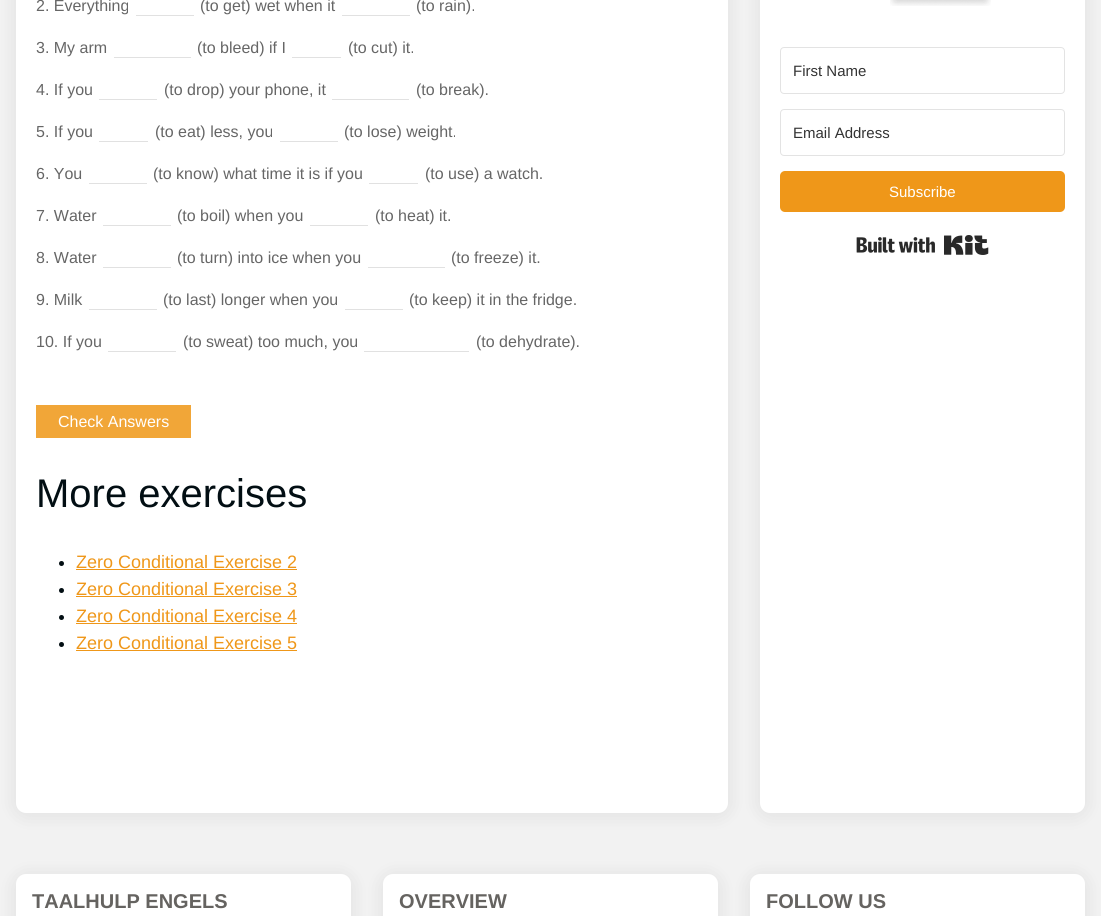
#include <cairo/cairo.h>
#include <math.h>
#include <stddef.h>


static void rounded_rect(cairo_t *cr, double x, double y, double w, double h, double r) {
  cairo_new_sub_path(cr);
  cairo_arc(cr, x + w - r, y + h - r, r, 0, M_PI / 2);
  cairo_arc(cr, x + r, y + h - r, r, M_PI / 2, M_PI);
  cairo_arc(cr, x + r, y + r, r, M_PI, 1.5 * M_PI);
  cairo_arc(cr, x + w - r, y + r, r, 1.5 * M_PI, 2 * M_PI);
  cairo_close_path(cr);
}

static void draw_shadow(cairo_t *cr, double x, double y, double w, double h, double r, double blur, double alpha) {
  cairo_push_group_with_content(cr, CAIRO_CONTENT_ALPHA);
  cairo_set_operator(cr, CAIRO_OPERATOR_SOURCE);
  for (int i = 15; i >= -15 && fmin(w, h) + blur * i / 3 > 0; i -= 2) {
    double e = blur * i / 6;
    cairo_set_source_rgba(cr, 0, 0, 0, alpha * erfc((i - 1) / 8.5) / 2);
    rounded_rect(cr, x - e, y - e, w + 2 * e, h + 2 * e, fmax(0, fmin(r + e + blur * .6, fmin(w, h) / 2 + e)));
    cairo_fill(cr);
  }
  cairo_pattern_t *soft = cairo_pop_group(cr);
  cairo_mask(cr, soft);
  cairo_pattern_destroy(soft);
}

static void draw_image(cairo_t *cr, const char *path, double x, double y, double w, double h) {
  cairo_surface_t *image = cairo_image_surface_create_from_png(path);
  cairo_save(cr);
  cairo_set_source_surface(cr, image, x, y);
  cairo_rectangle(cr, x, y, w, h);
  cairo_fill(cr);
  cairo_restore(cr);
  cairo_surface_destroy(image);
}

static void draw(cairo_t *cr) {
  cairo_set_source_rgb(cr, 242 / 255.0, 242 / 255.0, 242 / 255.0);
  cairo_paint(cr);
  cairo_set_source_rgb(cr, 0, 0, 0);
  draw_shadow(cr, 16, -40, 712, 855, 10, 10, 0.08);
  cairo_set_source_rgb(cr, 1, 1, 1);
  rounded_rect(cr, 16, -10, 712, 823, 10);
  cairo_fill(cr);
  cairo_set_source_rgb(cr, 225 / 255.0, 225 / 255.0, 225 / 255.0);
  cairo_rectangle(cr, 136, 15, 58, 1);
  cairo_fill(cr);
  cairo_rectangle(cr, 342, 15, 68, 1);
  cairo_fill(cr);
  cairo_rectangle(cr, 114, 57, 77, 1);
  cairo_fill(cr);
  cairo_rectangle(cr, 292, 57, 49, 1);
  cairo_fill(cr);
  cairo_rectangle(cr, 99, 99, 58, 1);
  cairo_fill(cr);
  cairo_rectangle(cr, 332, 99, 77, 1);
  cairo_fill(cr);
  cairo_rectangle(cr, 99, 141, 49, 1);
  cairo_fill(cr);
  cairo_rectangle(cr, 280, 141, 58, 1);
  cairo_fill(cr);
  cairo_rectangle(cr, 89, 183, 58, 1);
  cairo_fill(cr);
  cairo_rectangle(cr, 369, 183, 49, 1);
  cairo_fill(cr);
  cairo_rectangle(cr, 103, 225, 68, 1);
  cairo_fill(cr);
  cairo_rectangle(cr, 310, 225, 58, 1);
  cairo_fill(cr);
  cairo_rectangle(cr, 103, 267, 68, 1);
  cairo_fill(cr);
  cairo_rectangle(cr, 368, 267, 77, 1);
  cairo_fill(cr);
  cairo_rectangle(cr, 89, 309, 68, 1);
  cairo_fill(cr);
  cairo_rectangle(cr, 345, 309, 58, 1);
  cairo_fill(cr);
  cairo_rectangle(cr, 108, 351, 68, 1);
  cairo_fill(cr);
  cairo_rectangle(cr, 364, 351, 105, 1);
  cairo_fill(cr);
  cairo_set_source_rgb(cr, 241 / 255.0, 166 / 255.0, 56 / 255.0);
  cairo_rectangle(cr, 36, 405, 155, 33);
  cairo_fill(cr);
  cairo_set_source_rgb(cr, 2 / 255.0, 14 / 255.0, 19 / 255.0);
  cairo_arc(cr, 61.5, 563.5, 2.5, 0, 2 * M_PI);
  cairo_fill(cr);
  cairo_set_source_rgb(cr, 239 / 255.0, 151 / 255.0, 25 / 255.0);
  cairo_rectangle(cr, 76, 569, 221, 1);
  cairo_fill(cr);
  cairo_set_source_rgb(cr, 2 / 255.0, 14 / 255.0, 19 / 255.0);
  cairo_arc(cr, 61.5, 590.5, 2.5, 0, 2 * M_PI);
  cairo_fill(cr);
  cairo_set_source_rgb(cr, 239 / 255.0, 151 / 255.0, 25 / 255.0);
  cairo_rectangle(cr, 76, 596, 221, 1);
  cairo_fill(cr);
  cairo_set_source_rgb(cr, 2 / 255.0, 14 / 255.0, 19 / 255.0);
  cairo_arc(cr, 61.5, 617.5, 2.5, 0, 2 * M_PI);
  cairo_fill(cr);
  cairo_set_source_rgb(cr, 239 / 255.0, 151 / 255.0, 25 / 255.0);
  cairo_rectangle(cr, 76, 623, 221, 1);
  cairo_fill(cr);
  cairo_set_source_rgb(cr, 2 / 255.0, 14 / 255.0, 19 / 255.0);
  cairo_arc(cr, 61.5, 644.5, 2.5, 0, 2 * M_PI);
  cairo_fill(cr);
  cairo_set_source_rgb(cr, 239 / 255.0, 151 / 255.0, 25 / 255.0);
  cairo_rectangle(cr, 76, 650, 221, 1);
  cairo_fill(cr);
  cairo_set_source_rgb(cr, 0, 0, 0);
  draw_shadow(cr, 760, -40, 325, 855, 10, 10, 0.08);
  cairo_set_source_rgb(cr, 1, 1, 1);
  rounded_rect(cr, 760, -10, 325, 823, 10);
  cairo_fill(cr);
  draw_image(cr, "images/1.png", 890, 0, 101, 6);
  rounded_rect(cr, 780.5, 47.5, 284, 46, 3.5);
  cairo_set_source_rgb(cr, 227 / 255.0, 227 / 255.0, 227 / 255.0);
  cairo_set_line_width(cr, 1);
  cairo_stroke(cr);
  rounded_rect(cr, 780.5, 109.5, 284, 46, 3.5);
  cairo_stroke(cr);
  cairo_set_source_rgb(cr, 239 / 255.0, 151 / 255.0, 25 / 255.0);
  rounded_rect(cr, 780, 171, 285, 41, 5);
  cairo_fill(cr);
  draw_image(cr, "images/2.png", 856, 235, 133, 20);
  cairo_set_source_rgb(cr, 0, 0, 0);
  draw_shadow(cr, 16, 876, 335, 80, 10, 10, 0.08);
  cairo_set_source_rgb(cr, 1, 1, 1);
  rounded_rect(cr, 16, 874, 335, 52, 10);
  cairo_fill(cr);
  cairo_set_source_rgb(cr, 0, 0, 0);
  draw_shadow(cr, 383, 876, 335, 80, 10, 10, 0.08);
  cairo_set_source_rgb(cr, 1, 1, 1);
  rounded_rect(cr, 383, 874, 335, 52, 10);
  cairo_fill(cr);
  cairo_set_source_rgb(cr, 0, 0, 0);
  draw_shadow(cr, 750, 876, 335, 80, 10, 10, 0.08);
  cairo_set_source_rgb(cr, 1, 1, 1);
  rounded_rect(cr, 750, 874, 335, 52, 10);
  cairo_fill(cr);
  cairo_select_font_face(cr, "Liberation Sans", CAIRO_FONT_SLANT_NORMAL, CAIRO_FONT_WEIGHT_NORMAL);
  cairo_set_font_size(cr, 16);
  cairo_set_source_rgb(cr, 102 / 255.0, 102 / 255.0, 102 / 255.0);
  cairo_move_to(cr, 36, 11);
  cairo_show_text(cr, "2. Everything");
  cairo_move_to(cr, 200, 11);
  cairo_show_text(cr, "(to get) wet when it");
  cairo_move_to(cr, 416, 11);
  cairo_show_text(cr, "(to rain).");
  cairo_move_to(cr, 36, 53);
  cairo_show_text(cr, "3. My arm");
  cairo_move_to(cr, 197, 53);
  cairo_show_text(cr, "(to bleed) if I");
  cairo_move_to(cr, 348, 53);
  cairo_show_text(cr, "(to cut) it.");
  cairo_move_to(cr, 36, 95);
  cairo_show_text(cr, "4. If you");
  cairo_move_to(cr, 164, 95);
  cairo_show_text(cr, "(to drop) your phone, it");
  cairo_move_to(cr, 416, 95);
  cairo_show_text(cr, "(to break).");
  cairo_move_to(cr, 36, 137);
  cairo_show_text(cr, "5. If you");
  cairo_move_to(cr, 155, 137);
  cairo_show_text(cr, "(to eat) less, you");
  cairo_move_to(cr, 344, 137);
  cairo_show_text(cr, "(to lose) weight.");
  cairo_move_to(cr, 36, 179);
  cairo_show_text(cr, "6. You");
  cairo_move_to(cr, 153, 179);
  cairo_show_text(cr, "(to know) what time it is if you");
  cairo_move_to(cr, 425, 179);
  cairo_show_text(cr, "(to use) a watch.");
  cairo_move_to(cr, 36, 221);
  cairo_show_text(cr, "7. Water");
  cairo_move_to(cr, 177, 221);
  cairo_show_text(cr, "(to boil) when you");
  cairo_move_to(cr, 375, 221);
  cairo_show_text(cr, "(to heat) it.");
  cairo_move_to(cr, 36, 263);
  cairo_show_text(cr, "8. Water");
  cairo_move_to(cr, 177, 263);
  cairo_show_text(cr, "(to turn) into ice when you");
  cairo_move_to(cr, 451, 263);
  cairo_show_text(cr, "(to freeze) it.");
  cairo_move_to(cr, 36, 305);
  cairo_show_text(cr, "9. Milk");
  cairo_move_to(cr, 163, 305);
  cairo_show_text(cr, "(to last) longer when you");
  cairo_move_to(cr, 409, 305);
  cairo_show_text(cr, "(to keep) it in the fridge.");
  cairo_move_to(cr, 36, 347);
  cairo_show_text(cr, "10. If you");
  cairo_move_to(cr, 183, 347);
  cairo_show_text(cr, "(to sweat) too much, you");
  cairo_move_to(cr, 476, 347);
  cairo_show_text(cr, "(to dehydrate).");
  cairo_set_source_rgb(cr, 1, 1, 1);
  cairo_move_to(cr, 58, 427);
  cairo_show_text(cr, "Check Answers");
  cairo_set_font_size(cr, 40);
  cairo_set_source_rgb(cr, 2 / 255.0, 14 / 255.0, 19 / 255.0);
  cairo_move_to(cr, 36, 507);
  cairo_show_text(cr, "More exercises");
  cairo_set_font_size(cr, 18);
  cairo_set_source_rgb(cr, 239 / 255.0, 151 / 255.0, 25 / 255.0);
  cairo_move_to(cr, 76, 568);
  cairo_show_text(cr, "Zero Conditional Exercise 2");
  cairo_move_to(cr, 76, 595);
  cairo_show_text(cr, "Zero Conditional Exercise 3");
  cairo_move_to(cr, 76, 622);
  cairo_show_text(cr, "Zero Conditional Exercise 4");
  cairo_move_to(cr, 76, 649);
  cairo_show_text(cr, "Zero Conditional Exercise 5");
  cairo_set_font_size(cr, 15);
  cairo_set_source_rgb(cr, 51 / 255.0, 51 / 255.0, 51 / 255.0);
  cairo_move_to(cr, 793, 76);
  cairo_show_text(cr, "First Name");
  cairo_move_to(cr, 793, 138);
  cairo_show_text(cr, "Email Address");
  cairo_set_source_rgb(cr, 1, 1, 1);
  cairo_move_to(cr, 889, 197);
  cairo_show_text(cr, "Subscribe");
  cairo_select_font_face(cr, "Liberation Sans", CAIRO_FONT_SLANT_NORMAL, CAIRO_FONT_WEIGHT_BOLD);
  cairo_set_font_size(cr, 20);
  cairo_set_source_rgb(cr, 101 / 255.0, 99 / 255.0, 96 / 255.0);
  cairo_move_to(cr, 32, 908);
  cairo_show_text(cr, "TAALHULP ENGELS");
  cairo_move_to(cr, 399, 908);
  cairo_show_text(cr, "OVERVIEW");
  cairo_move_to(cr, 766, 908);
  cairo_show_text(cr, "FOLLOW US");
}

int main(void) {
  cairo_surface_t *surface = cairo_image_surface_create(CAIRO_FORMAT_RGB24, 1101, 916);
  cairo_t *cr = cairo_create(surface);
  cairo_font_options_t *options = cairo_font_options_create();
  cairo_font_options_set_hint_metrics(options, CAIRO_HINT_METRICS_OFF);
  cairo_font_options_set_hint_style(options, CAIRO_HINT_STYLE_NONE);
  cairo_set_font_options(cr, options);
  cairo_set_miter_limit(cr, 4);
  draw(cr);
  cairo_surface_write_to_png(surface, "out.png");
  cairo_font_options_destroy(options);
  cairo_destroy(cr);
  cairo_surface_destroy(surface);
  return 0;
}
